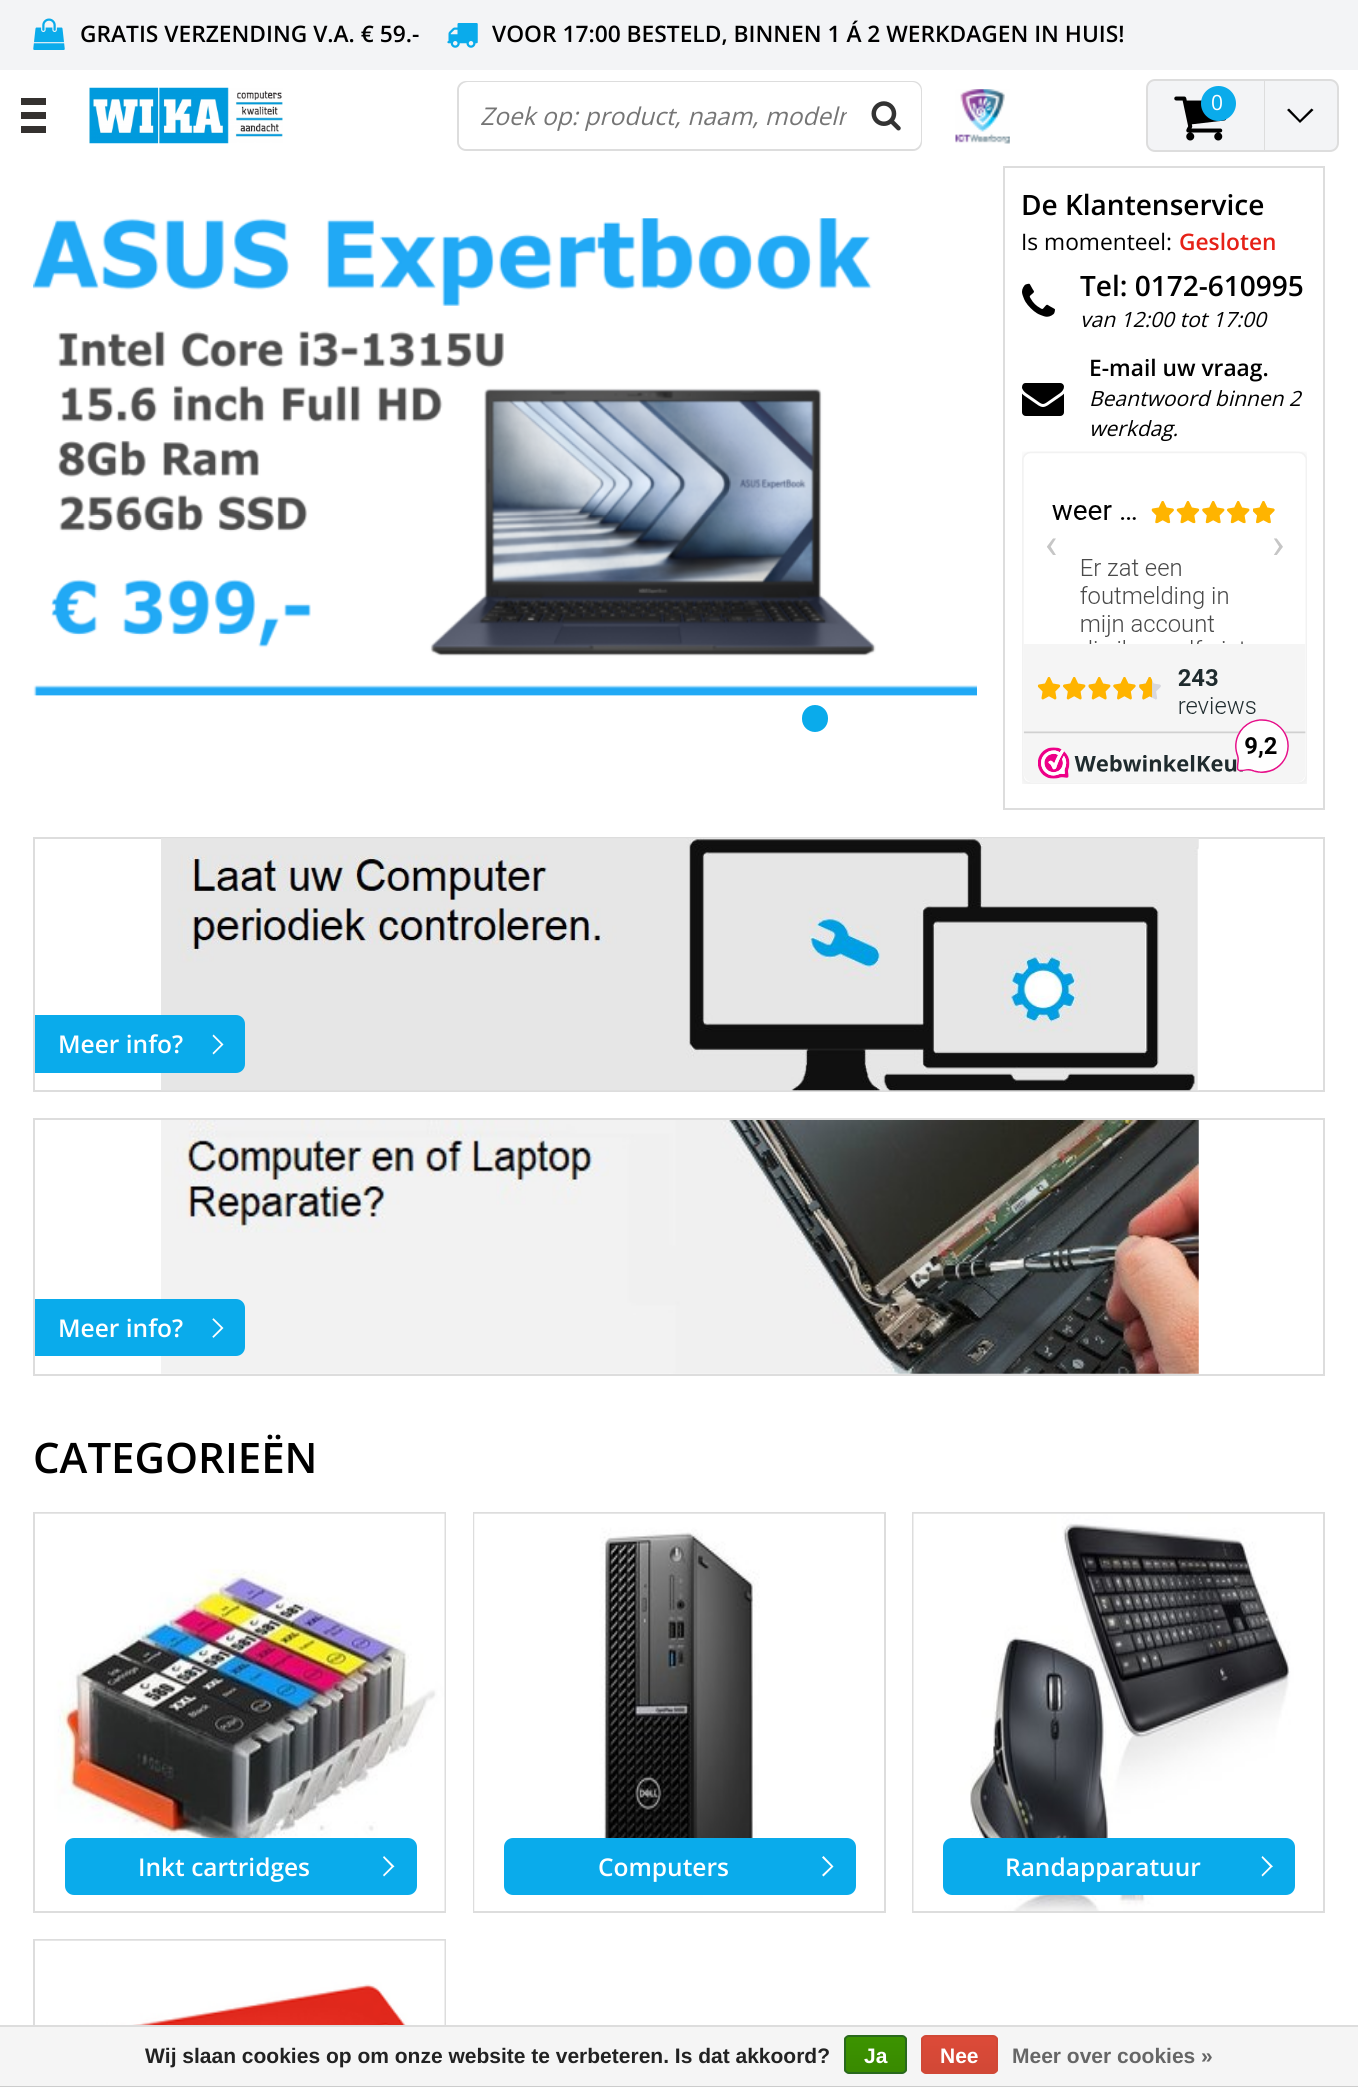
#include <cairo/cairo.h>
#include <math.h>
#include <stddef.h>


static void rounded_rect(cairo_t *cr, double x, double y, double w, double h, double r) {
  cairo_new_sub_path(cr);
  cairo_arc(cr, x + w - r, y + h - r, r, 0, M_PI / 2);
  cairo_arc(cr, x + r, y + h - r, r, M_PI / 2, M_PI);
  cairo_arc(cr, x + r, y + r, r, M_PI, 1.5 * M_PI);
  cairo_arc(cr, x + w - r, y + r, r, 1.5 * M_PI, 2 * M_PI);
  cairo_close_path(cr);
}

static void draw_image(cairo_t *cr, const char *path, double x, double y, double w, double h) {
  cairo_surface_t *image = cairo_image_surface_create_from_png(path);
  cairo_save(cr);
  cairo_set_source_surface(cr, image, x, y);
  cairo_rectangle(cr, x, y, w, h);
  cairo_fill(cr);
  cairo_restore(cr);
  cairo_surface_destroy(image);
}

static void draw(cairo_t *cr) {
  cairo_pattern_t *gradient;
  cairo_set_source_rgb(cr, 1, 1, 1);
  cairo_paint(cr);
  cairo_set_source_rgb(cr, 243 / 255.0, 244 / 255.0, 246 / 255.0);
  cairo_rectangle(cr, 0, 0, 1358, 70);
  cairo_fill(cr);
  draw_image(cr, "images/1.png", 33, 18, 32, 32);
  draw_image(cr, "images/2.png", 447, 23, 31, 25);
  cairo_set_source_rgb(cr, 52 / 255.0, 49 / 255.0, 47 / 255.0);
  cairo_rectangle(cr, 21, 98, 25, 7);
  cairo_fill(cr);
  cairo_rectangle(cr, 21, 112, 25, 7);
  cairo_fill(cr);
  cairo_rectangle(cr, 21, 126, 25, 7);
  cairo_fill(cr);
  draw_image(cr, "images/3.png", 89, 87, 194, 57);
  cairo_set_source_rgb(cr, 243 / 255.0, 244 / 255.0, 246 / 255.0);
  rounded_rect(cr, 1147, 80, 191, 71, 8);
  cairo_fill_preserve(cr);
  cairo_set_source_rgb(cr, 221 / 255.0, 221 / 255.0, 221 / 255.0);
  cairo_stroke(cr);
  draw_image(cr, "images/4.png", 1174, 96, 53, 45);
  cairo_set_source_rgb(cr, 10 / 255.0, 171 / 255.0, 235 / 255.0);
  cairo_arc(cr, 1218.5, 103.5, 17.5, 0, 2 * M_PI);
  cairo_fill(cr);
  cairo_set_source_rgb(cr, 221 / 255.0, 221 / 255.0, 221 / 255.0);
  cairo_new_path(cr);
  cairo_move_to(cr, 1264, 152);
  cairo_line_to(cr, 1264, 80);
  cairo_line_to(cr, 1265, 80);
  cairo_line_to(cr, 1265, 150);
  cairo_close_path(cr);
  cairo_fill(cr);
  cairo_set_source_rgb(cr, 0, 0, 0);
  cairo_new_path(cr);
  cairo_move_to(cr, 1298.5, 121.5);
  cairo_line_to(cr, 1300, 123);
  cairo_line_to(cr, 1313.5, 110);
  cairo_line_to(cr, 1311.5, 108.5);
  cairo_line_to(cr, 1300, 120);
  cairo_line_to(cr, 1289, 108.5);
  cairo_line_to(cr, 1287, 110);
  cairo_close_path(cr);
  cairo_fill(cr);
  rounded_rect(cr, 458, 82, 463, 68, 8);
  cairo_set_source_rgb(cr, 221 / 255.0, 221 / 255.0, 221 / 255.0);
  cairo_stroke(cr);
  cairo_set_source_rgb(cr, 1, 1, 1);
  rounded_rect(cr, 459, 82, 462, 67, 9);
  cairo_fill(cr);
  draw_image(cr, "images/5.png", 871, 101, 30, 30);
  draw_image(cr, "images/6.png", 955, 89, 55, 55);
  draw_image(cr, "images/7.png", 33, 218, 944, 478);
  cairo_set_source_rgb(cr, 10 / 255.0, 171 / 255.0, 235 / 255.0);
  rounded_rect(cr, 802, 705, 26, 27, 13);
  cairo_fill(cr);
  cairo_rectangle(cr, 1004, 167, 320, 642);
  cairo_set_source_rgb(cr, 221 / 255.0, 221 / 255.0, 221 / 255.0);
  cairo_stroke(cr);
  draw_image(cr, "images/8.png", 1022, 283, 33, 34);
  draw_image(cr, "images/9.png", 1022, 383, 42, 33);
  draw_image(cr, "images/10.png", 1022, 451, 285, 333);
  cairo_rectangle(cr, 34, 838, 1290, 253);
  cairo_stroke(cr);
  draw_image(cr, "images/11.png", 161, 838, 1038, 253);
  cairo_set_source_rgb(cr, 10 / 255.0, 171 / 255.0, 235 / 255.0);
  cairo_new_path(cr);
  cairo_move_to(cr, 35, 1015);
  cairo_line_to(cr, 236, 1015);
  cairo_curve_to(cr, 241, 1015, 245, 1019, 245, 1024);
  cairo_line_to(cr, 245, 1064);
  cairo_curve_to(cr, 245, 1069, 241, 1073, 236, 1073);
  cairo_line_to(cr, 35, 1073);
  cairo_close_path(cr);
  cairo_fill(cr);
  cairo_set_source_rgb(cr, 1, 1, 1);
  cairo_new_path(cr);
  cairo_move_to(cr, 222, 1046);
  cairo_line_to(cr, 223.5, 1044.5);
  cairo_line_to(cr, 213.5, 1034.5);
  cairo_line_to(cr, 212.5, 1036);
  cairo_line_to(cr, 221, 1044.5);
  cairo_line_to(cr, 212.5, 1053);
  cairo_line_to(cr, 213.5, 1054.5);
  cairo_close_path(cr);
  cairo_fill(cr);
  cairo_rectangle(cr, 34, 1119, 1290, 256);
  cairo_set_source_rgb(cr, 221 / 255.0, 221 / 255.0, 221 / 255.0);
  cairo_stroke(cr);
  draw_image(cr, "images/13.png", 161, 1120, 1038, 254);
  cairo_set_source_rgb(cr, 10 / 255.0, 171 / 255.0, 235 / 255.0);
  cairo_new_path(cr);
  cairo_move_to(cr, 35, 1299);
  cairo_line_to(cr, 236, 1299);
  cairo_curve_to(cr, 241, 1299, 245, 1303, 245, 1308);
  cairo_line_to(cr, 245, 1347);
  cairo_curve_to(cr, 245, 1352, 241, 1356, 236, 1356);
  cairo_line_to(cr, 35, 1356);
  cairo_close_path(cr);
  cairo_fill(cr);
  draw_image(cr, "images/12.png", 212, 1318, 12, 20);
  cairo_rectangle(cr, 34, 1513, 411, 399);
  cairo_set_source_rgb(cr, 221 / 255.0, 221 / 255.0, 221 / 255.0);
  cairo_stroke(cr);
  draw_image(cr, "images/14.png", 35, 1513, 410, 398);
  cairo_set_source_rgb(cr, 10 / 255.0, 171 / 255.0, 235 / 255.0);
  rounded_rect(cr, 65, 1838, 352, 57, 9);
  cairo_fill(cr);
  cairo_set_source_rgb(cr, 1, 1, 1);
  cairo_new_path(cr);
  cairo_move_to(cr, 393, 1867.5);
  cairo_line_to(cr, 394.5, 1866.5);
  cairo_line_to(cr, 384, 1856);
  cairo_line_to(cr, 383, 1857.5);
  cairo_line_to(cr, 391.5, 1866.5);
  cairo_line_to(cr, 383, 1875);
  cairo_line_to(cr, 384, 1876.5);
  cairo_close_path(cr);
  cairo_fill(cr);
  cairo_rectangle(cr, 474, 1513, 411, 399);
  cairo_set_source_rgb(cr, 221 / 255.0, 221 / 255.0, 221 / 255.0);
  cairo_stroke(cr);
  draw_image(cr, "images/15.png", 474, 1513, 410, 398);
  cairo_set_source_rgb(cr, 10 / 255.0, 171 / 255.0, 235 / 255.0);
  rounded_rect(cr, 504, 1838, 352, 57, 9);
  cairo_fill(cr);
  cairo_set_source_rgb(cr, 1, 1, 1);
  cairo_new_path(cr);
  cairo_move_to(cr, 832.5, 1867.5);
  cairo_line_to(cr, 833.5, 1866.5);
  cairo_line_to(cr, 823.5, 1856);
  cairo_line_to(cr, 822, 1857.5);
  cairo_line_to(cr, 831, 1866.5);
  cairo_line_to(cr, 822, 1875);
  cairo_line_to(cr, 823.5, 1876.5);
  cairo_close_path(cr);
  cairo_fill(cr);
  cairo_rectangle(cr, 913, 1513, 411, 399);
  cairo_set_source_rgb(cr, 221 / 255.0, 221 / 255.0, 221 / 255.0);
  cairo_stroke(cr);
  draw_image(cr, "images/16.png", 913, 1513, 410, 398);
  cairo_set_source_rgb(cr, 10 / 255.0, 171 / 255.0, 235 / 255.0);
  rounded_rect(cr, 943, 1838, 352, 57, 9);
  cairo_fill(cr);
  cairo_set_source_rgb(cr, 1, 1, 1);
  cairo_new_path(cr);
  cairo_move_to(cr, 1271.5, 1867.5);
  cairo_line_to(cr, 1273, 1866.5);
  cairo_line_to(cr, 1262.5, 1856);
  cairo_line_to(cr, 1261.5, 1857.5);
  cairo_line_to(cr, 1270, 1866.5);
  cairo_line_to(cr, 1261.5, 1875);
  cairo_line_to(cr, 1262.5, 1876.5);
  cairo_close_path(cr);
  cairo_fill(cr);
  cairo_rectangle(cr, 34, 1940, 411, 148);
  cairo_set_source_rgb(cr, 221 / 255.0, 221 / 255.0, 221 / 255.0);
  cairo_stroke(cr);
  draw_image(cr, "images/17.png", 35, 1940, 410, 85);
  cairo_set_source_rgb(cr, 245 / 255.0, 245 / 255.0, 245 / 255.0);
  cairo_rectangle(cr, 0, 2027, 1358, 59);
  cairo_fill(cr);
  cairo_set_source_rgb(cr, 221 / 255.0, 221 / 255.0, 221 / 255.0);
  cairo_rectangle(cr, 0, 2025, 1358, 2);
  cairo_fill(cr);
  cairo_set_source_rgb(cr, 204 / 255.0, 204 / 255.0, 204 / 255.0);
  cairo_rectangle(cr, 0, 2086, 1358, 1);
  cairo_fill(cr);
  cairo_save(cr);
  rounded_rect(cr, 844, 2035, 63, 39, 5);
  cairo_clip(cr);
  gradient = cairo_pattern_create_linear(875, 2037, 875, 2072);
  cairo_pattern_add_color_stop_rgba(gradient, 0, 60 / 255.0, 147 / 255.0, 0, 1);
  cairo_pattern_add_color_stop_rgba(gradient, 1, 57 / 255.0, 138 / 255.0, 0, 1);
  cairo_set_source(cr, gradient);
  cairo_pattern_destroy(gradient);
  cairo_rectangle(cr, 844, 2037, 63, 35);
  cairo_fill(cr);
  cairo_restore(cr);
  rounded_rect(cr, 845, 2036, 61, 37, 4);
  cairo_set_source_rgb(cr, 41 / 255.0, 105 / 255.0, 29 / 255.0);
  cairo_stroke(cr);
  cairo_save(cr);
  rounded_rect(cr, 921, 2035, 77, 39, 5);
  cairo_clip(cr);
  gradient = cairo_pattern_create_linear(959, 2037, 959, 2072);
  cairo_pattern_add_color_stop_rgba(gradient, 0, 220 / 255.0, 74 / 255.0, 56 / 255.0, 1);
  cairo_pattern_add_color_stop_rgba(gradient, 1, 209 / 255.0, 72 / 255.0, 54 / 255.0, 1);
  cairo_set_source(cr, gradient);
  cairo_pattern_destroy(gradient);
  cairo_rectangle(cr, 921, 2037, 77, 35);
  cairo_fill(cr);
  cairo_restore(cr);
  rounded_rect(cr, 922, 2036, 75, 37, 4);
  cairo_set_source_rgb(cr, 209 / 255.0, 72 / 255.0, 54 / 255.0);
  cairo_stroke(cr);
  cairo_select_font_face(cr, "Open Sans SemiBold", CAIRO_FONT_SLANT_NORMAL, CAIRO_FONT_WEIGHT_NORMAL);
  cairo_set_font_size(cr, 22.75);
  cairo_set_source_rgb(cr, 0, 0, 0);
  cairo_move_to(cr, 80, 42);
  cairo_show_text(cr, "GRATIS VERZENDING V.A. € 59.-");
  cairo_move_to(cr, 492, 42);
  cairo_show_text(cr, "VOOR 17:00 BESTELD, BINNEN 1 Á 2 WERKDAGEN IN HUIS!");
  cairo_select_font_face(cr, "Open Sans", CAIRO_FONT_SLANT_NORMAL, CAIRO_FONT_WEIGHT_NORMAL);
  cairo_set_font_size(cr, 21);
  cairo_set_source_rgb(cr, 1, 1, 1);
  cairo_move_to(cr, 1211, 110);
  cairo_show_text(cr, "0");
  cairo_save(cr);
  cairo_rectangle(cr, 480, 100, 367, 33);
  cairo_clip(cr);
  cairo_select_font_face(cr, "Open Sans", CAIRO_FONT_SLANT_ITALIC, CAIRO_FONT_WEIGHT_NORMAL);
  cairo_set_font_size(cr, 24.5);
  cairo_set_source_rgb(cr, 117 / 255.0, 117 / 255.0, 117 / 255.0);
  cairo_move_to(cr, 480, 125);
  cairo_show_text(cr, "Zoek op: product, naam, modeln");
  cairo_restore(cr);
  cairo_select_font_face(cr, "Open Sans SemiBold", CAIRO_FONT_SLANT_NORMAL, CAIRO_FONT_WEIGHT_NORMAL);
  cairo_set_font_size(cr, 28);
  cairo_set_source_rgb(cr, 0, 0, 0);
  cairo_move_to(cr, 1021, 215);
  cairo_show_text(cr, "De Klantenservice");
  cairo_select_font_face(cr, "Open Sans", CAIRO_FONT_SLANT_NORMAL, CAIRO_FONT_WEIGHT_NORMAL);
  cairo_set_font_size(cr, 22.75);
  cairo_move_to(cr, 1021, 250);
  cairo_show_text(cr, "Is momenteel:");
  cairo_select_font_face(cr, "Open Sans SemiBold", CAIRO_FONT_SLANT_NORMAL, CAIRO_FONT_WEIGHT_NORMAL);
  cairo_set_source_rgb(cr, 230 / 255.0, 33 / 255.0, 23 / 255.0);
  cairo_move_to(cr, 1179, 250);
  cairo_show_text(cr, "Gesloten");
  cairo_set_font_size(cr, 28);
  cairo_set_source_rgb(cr, 0, 0, 0);
  cairo_move_to(cr, 1080, 296);
  cairo_show_text(cr, "Tel: 0172-610995");
  cairo_select_font_face(cr, "Open Sans", CAIRO_FONT_SLANT_ITALIC, CAIRO_FONT_WEIGHT_NORMAL);
  cairo_set_font_size(cr, 21);
  cairo_move_to(cr, 1080, 327);
  cairo_show_text(cr, "van 12:00 tot 17:00");
  cairo_select_font_face(cr, "Open Sans SemiBold", CAIRO_FONT_SLANT_NORMAL, CAIRO_FONT_WEIGHT_NORMAL);
  cairo_set_font_size(cr, 22.75);
  cairo_move_to(cr, 1089, 376);
  cairo_show_text(cr, "E-mail uw vraag.");
  cairo_select_font_face(cr, "Open Sans", CAIRO_FONT_SLANT_ITALIC, CAIRO_FONT_WEIGHT_NORMAL);
  cairo_set_font_size(cr, 21);
  cairo_move_to(cr, 1089, 406);
  cairo_show_text(cr, "Beantwoord binnen 2");
  cairo_move_to(cr, 1089, 436);
  cairo_show_text(cr, "werkdag.");
  cairo_select_font_face(cr, "Open Sans SemiBold", CAIRO_FONT_SLANT_NORMAL, CAIRO_FONT_WEIGHT_NORMAL);
  cairo_set_font_size(cr, 24.5);
  cairo_set_source_rgb(cr, 1, 1, 1);
  cairo_move_to(cr, 58, 1053);
  cairo_show_text(cr, "Meer info?");
  cairo_move_to(cr, 58, 1337);
  cairo_show_text(cr, "Meer info?");
  cairo_set_font_size(cr, 42);
  cairo_set_source_rgb(cr, 0, 0, 0);
  cairo_move_to(cr, 33, 1473);
  cairo_show_text(cr, "CATEGORIEËN");
  cairo_set_font_size(cr, 24.5);
  cairo_set_source_rgb(cr, 1, 1, 1);
  cairo_move_to(cr, 138, 1876);
  cairo_show_text(cr, "Inkt cartridges");
  cairo_move_to(cr, 598, 1876);
  cairo_show_text(cr, "Computers");
  cairo_move_to(cr, 1005, 1876);
  cairo_show_text(cr, "Randapparatuur");
  cairo_select_font_face(cr, "Liberation Sans", CAIRO_FONT_SLANT_NORMAL, CAIRO_FONT_WEIGHT_BOLD);
  cairo_set_font_size(cr, 21);
  cairo_set_source_rgb(cr, 34 / 255.0, 34 / 255.0, 34 / 255.0);
  cairo_move_to(cr, 145, 2063);
  cairo_show_text(cr, "Wij slaan cookies op om onze website te verbeteren. Is dat akkoord?");
  cairo_set_source_rgb(cr, 1, 1, 1);
  cairo_move_to(cr, 864, 2063);
  cairo_show_text(cr, "Ja");
  cairo_move_to(cr, 940, 2063);
  cairo_show_text(cr, "Nee");
  cairo_set_source_rgb(cr, 102 / 255.0, 102 / 255.0, 102 / 255.0);
  cairo_move_to(cr, 1012, 2063);
  cairo_show_text(cr, "Meer over cookies »");
}

int main(void) {
  cairo_surface_t *surface = cairo_image_surface_create(CAIRO_FORMAT_RGB24, 1358, 2087);
  cairo_t *cr = cairo_create(surface);
  cairo_font_options_t *options = cairo_font_options_create();
  cairo_font_options_set_hint_metrics(options, CAIRO_HINT_METRICS_OFF);
  cairo_font_options_set_hint_style(options, CAIRO_HINT_STYLE_NONE);
  cairo_set_font_options(cr, options);
  cairo_set_miter_limit(cr, 4);
  draw(cr);
  cairo_surface_write_to_png(surface, "out.png");
  cairo_font_options_destroy(options);
  cairo_destroy(cr);
  cairo_surface_destroy(surface);
  return 0;
}
